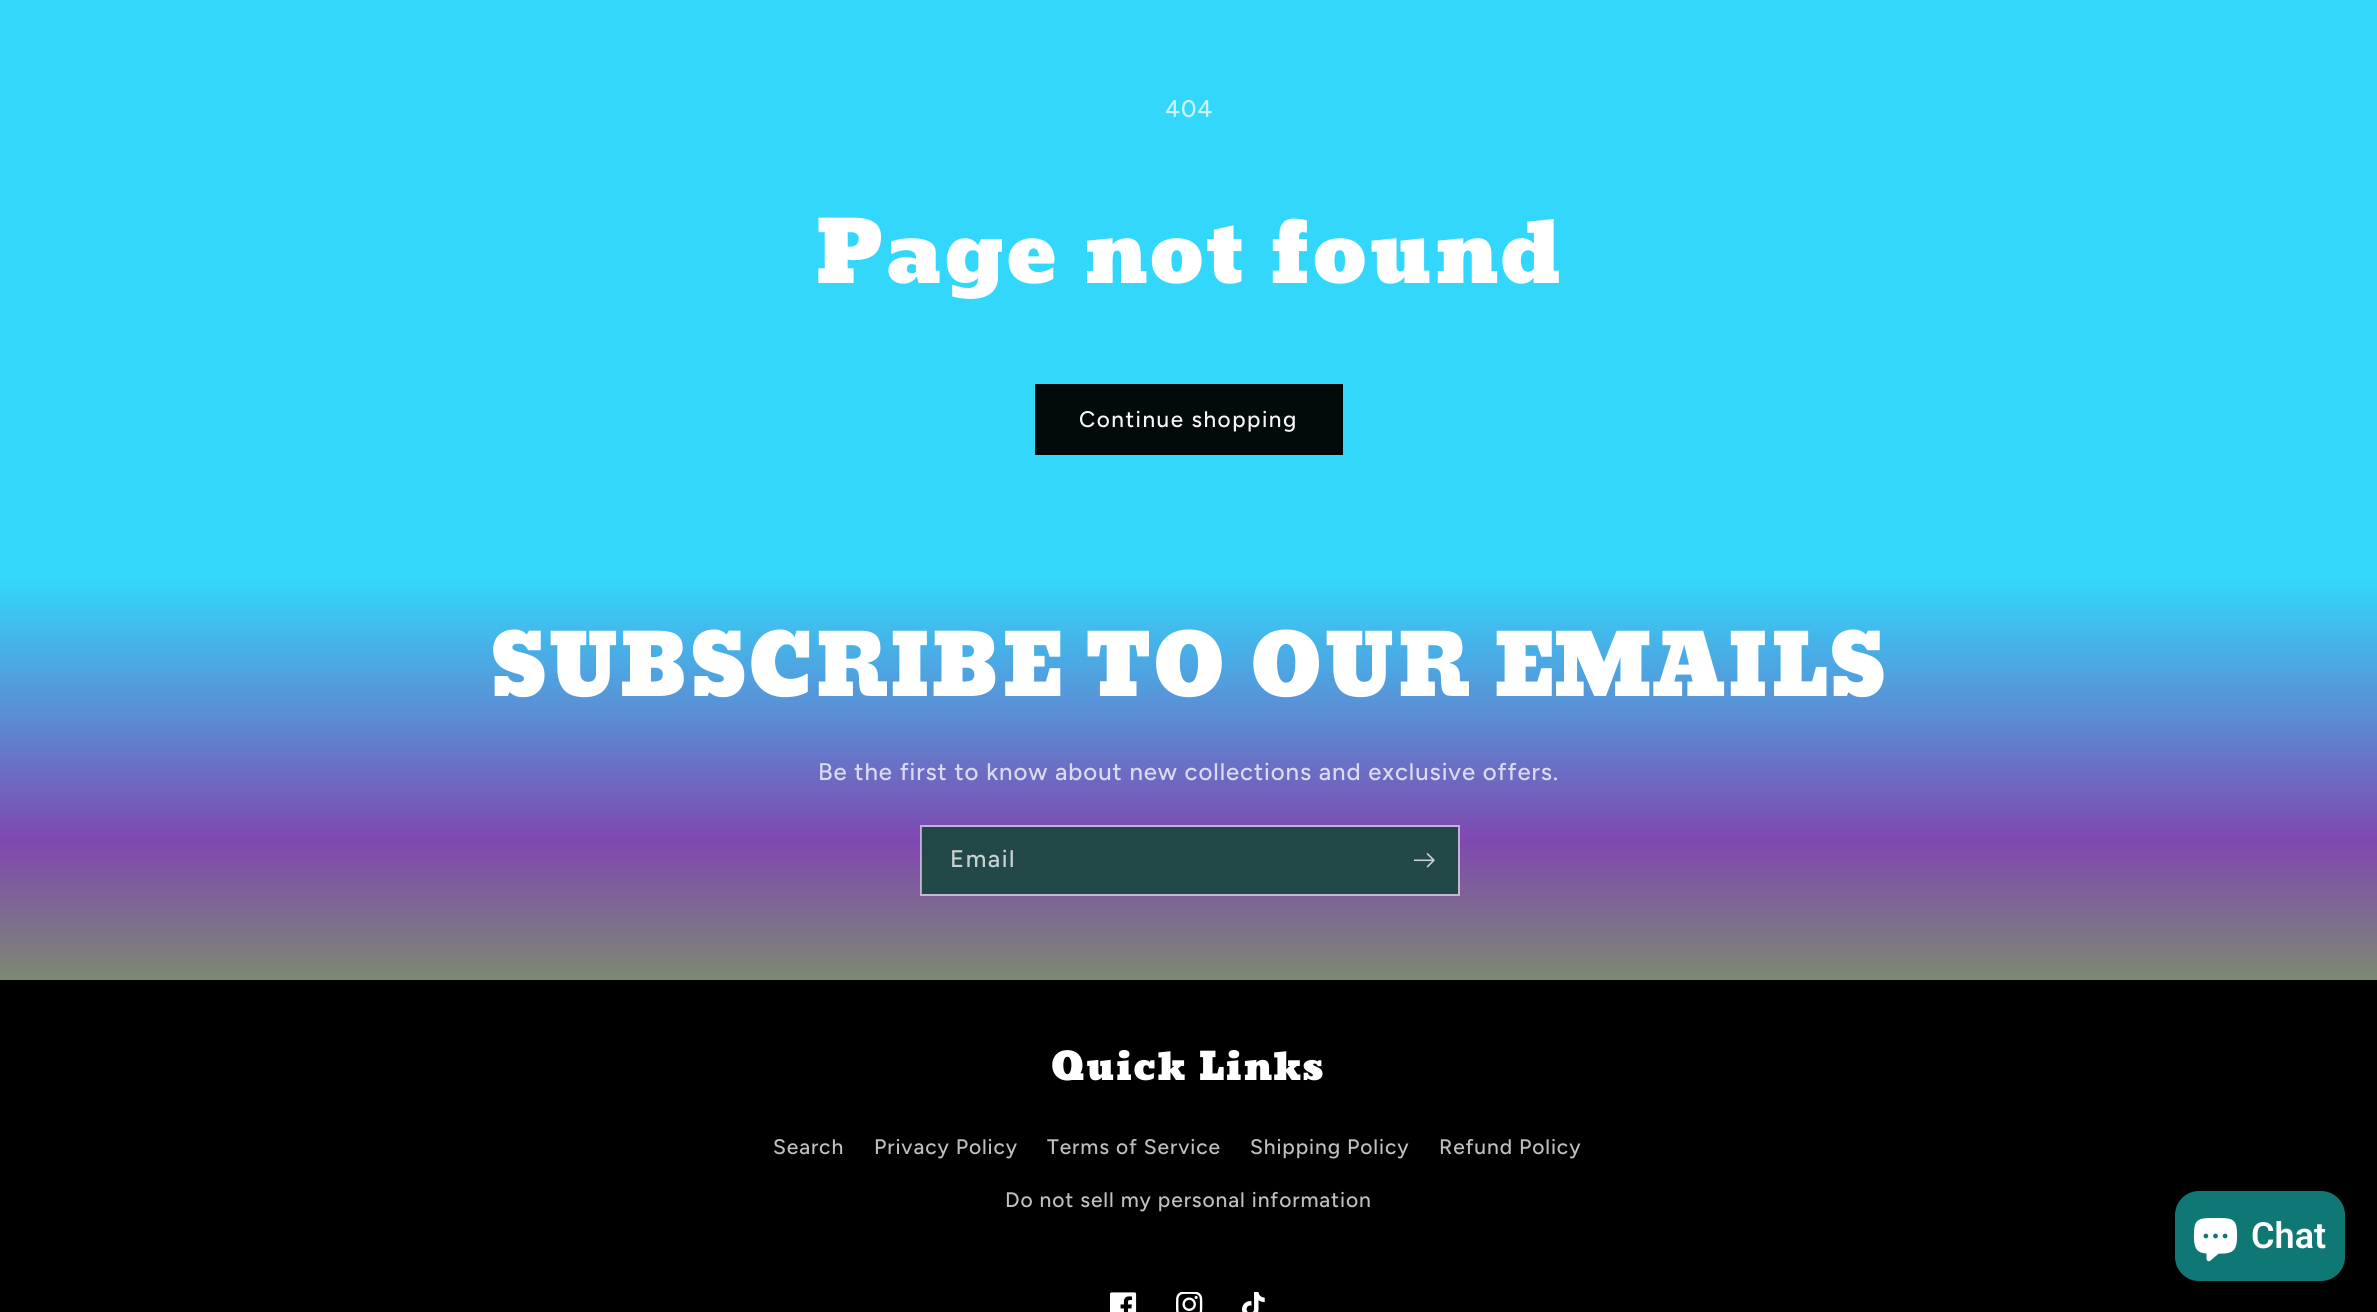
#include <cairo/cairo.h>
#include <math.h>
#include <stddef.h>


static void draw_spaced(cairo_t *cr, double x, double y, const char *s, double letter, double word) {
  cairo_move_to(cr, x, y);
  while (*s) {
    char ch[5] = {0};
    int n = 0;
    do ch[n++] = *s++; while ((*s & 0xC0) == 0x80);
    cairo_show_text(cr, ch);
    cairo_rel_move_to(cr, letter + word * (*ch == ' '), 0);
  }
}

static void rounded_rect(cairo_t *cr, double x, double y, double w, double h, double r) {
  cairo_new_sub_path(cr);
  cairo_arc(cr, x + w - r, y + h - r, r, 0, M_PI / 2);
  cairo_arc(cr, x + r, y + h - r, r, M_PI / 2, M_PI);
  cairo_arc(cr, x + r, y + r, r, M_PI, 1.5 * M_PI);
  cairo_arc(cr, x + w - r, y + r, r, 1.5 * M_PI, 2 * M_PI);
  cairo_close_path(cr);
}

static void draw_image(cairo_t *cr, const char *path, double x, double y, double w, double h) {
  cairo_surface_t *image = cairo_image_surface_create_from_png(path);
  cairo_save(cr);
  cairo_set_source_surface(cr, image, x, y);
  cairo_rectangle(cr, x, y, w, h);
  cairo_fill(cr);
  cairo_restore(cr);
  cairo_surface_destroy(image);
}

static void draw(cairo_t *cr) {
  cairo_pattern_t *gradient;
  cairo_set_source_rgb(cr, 1, 1, 1);
  cairo_paint(cr);
  gradient = cairo_pattern_create_linear(1189, 0, 1189, 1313);
  cairo_pattern_add_color_stop_rgba(gradient, 0.44, 51 / 255.0, 215 / 255.0, 251 / 255.0, 1);
  cairo_pattern_add_color_stop_rgba(gradient, 0.64, 127 / 255.0, 72 / 255.0, 176 / 255.0, 1);
  cairo_pattern_add_color_stop_rgba(gradient, 0.81, 124 / 255.0, 176 / 255.0, 77 / 255.0, 1);
  cairo_pattern_add_color_stop_rgba(gradient, 0.91, 4 / 255.0, 10 / 255.0, 2 / 255.0, 1);
  cairo_set_source(cr, gradient);
  cairo_pattern_destroy(gradient);
  cairo_rectangle(cr, 0, 0, 2377, 980);
  cairo_fill(cr);
  cairo_set_source_rgb(cr, 3 / 255.0, 10 / 255.0, 11 / 255.0);
  cairo_rectangle(cr, 1035, 384, 308, 71);
  cairo_fill(cr);
  cairo_set_source_rgb(cr, 35 / 255.0, 72 / 255.0, 72 / 255.0);
  cairo_rectangle(cr, 921, 827, 537, 67);
  cairo_fill(cr);
  cairo_rectangle(cr, 921, 826, 538, 69);
  cairo_set_source_rgba(cr, 1, 1, 1, 0.55);
  cairo_stroke(cr);
  draw_image(cr, "images/1.png", 1413, 853, 22, 15);
  cairo_set_source_rgb(cr, 0, 0, 0);
  cairo_rectangle(cr, 0, 980, 2377, 332);
  cairo_fill(cr);
  draw_image(cr, "images/2.png", 1110, 1292, 27, 20);
  draw_image(cr, "images/3.png", 1176, 1292, 27, 20);
  draw_image(cr, "images/4.png", 1242, 1292, 23, 20);
  cairo_set_source_rgb(cr, 16 / 255.0, 120 / 255.0, 116 / 255.0);
  rounded_rect(cr, 2175, 1191, 170, 90, 24);
  cairo_fill(cr);
  draw_image(cr, "images/5.png", 2193, 1218, 45, 44);
  cairo_select_font_face(cr, "Figtree Medium", CAIRO_FONT_SLANT_NORMAL, CAIRO_FONT_WEIGHT_NORMAL);
  cairo_set_font_size(cr, 24);
  cairo_set_source_rgb(cr, 204 / 255.0, 245 / 255.0, 254 / 255.0);
  draw_spaced(cr, 1165, 117, "404", 0.9, 0);
  cairo_select_font_face(cr, "Angkor", CAIRO_FONT_SLANT_NORMAL, CAIRO_FONT_WEIGHT_NORMAL);
  cairo_set_font_size(cr, 84);
  cairo_set_source_rgb(cr, 1, 1, 1);
  draw_spaced(cr, 815, 283, "Page not found", 1.25, 0);
  cairo_select_font_face(cr, "Figtree Medium", CAIRO_FONT_SLANT_NORMAL, CAIRO_FONT_WEIGHT_NORMAL);
  cairo_set_font_size(cr, 22.5);
  cairo_set_source_rgb(cr, 245 / 255.0, 245 / 255.0, 245 / 255.0);
  draw_spaced(cr, 1079, 427, "Continue shopping", 1.5, 0);
  cairo_select_font_face(cr, "Angkor", CAIRO_FONT_SLANT_NORMAL, CAIRO_FONT_WEIGHT_NORMAL);
  cairo_set_font_size(cr, 84);
  cairo_set_source_rgb(cr, 1, 1, 1);
  draw_spaced(cr, 490, 696, "SUBSCRIBE TO OUR EMAILS", 1.25, 0);
  cairo_select_font_face(cr, "Figtree Medium", CAIRO_FONT_SLANT_NORMAL, CAIRO_FONT_WEIGHT_NORMAL);
  cairo_set_font_size(cr, 24);
  cairo_set_source_rgb(cr, 218 / 255.0, 218 / 255.0, 240 / 255.0);
  draw_spaced(cr, 818, 780, "Be the first to know about new collections and exclusive offers.", 0.9, 0);
  cairo_set_source_rgb(cr, 200 / 255.0, 209 / 255.0, 209 / 255.0);
  draw_spaced(cr, 950, 867, "Email", 1.5, 0);
  cairo_select_font_face(cr, "Angkor", CAIRO_FONT_SLANT_NORMAL, CAIRO_FONT_WEIGHT_NORMAL);
  cairo_set_font_size(cr, 37.75);
  cairo_set_source_rgb(cr, 1, 1, 1);
  draw_spaced(cr, 1051, 1080, "Quick Links", 1.25, 0);
  cairo_select_font_face(cr, "Figtree Medium", CAIRO_FONT_SLANT_NORMAL, CAIRO_FONT_WEIGHT_NORMAL);
  cairo_set_font_size(cr, 21);
  cairo_set_source_rgb(cr, 191 / 255.0, 191 / 255.0, 191 / 255.0);
  draw_spaced(cr, 773, 1154, "Search", 0.9, 0);
  draw_spaced(cr, 874, 1154, "Privacy Policy", 0.9, 0);
  draw_spaced(cr, 1047, 1154, "Terms of Service", 0.9, 0);
  draw_spaced(cr, 1250, 1154, "Shipping Policy", 0.9, 0);
  draw_spaced(cr, 1439, 1154, "Refund Policy", 0.9, 0);
  draw_spaced(cr, 1005, 1207, "Do not sell my personal information", 0.9, 0);
  cairo_select_font_face(cr, "Roboto SemiBold", CAIRO_FONT_SLANT_NORMAL, CAIRO_FONT_WEIGHT_NORMAL);
  cairo_set_font_size(cr, 36);
  cairo_set_source_rgb(cr, 1, 1, 1);
  cairo_move_to(cr, 2251, 1248);
  cairo_show_text(cr, "Chat");
}

int main(void) {
  cairo_surface_t *surface = cairo_image_surface_create(CAIRO_FORMAT_RGB24, 2377, 1312);
  cairo_t *cr = cairo_create(surface);
  cairo_font_options_t *options = cairo_font_options_create();
  cairo_font_options_set_hint_metrics(options, CAIRO_HINT_METRICS_OFF);
  cairo_font_options_set_hint_style(options, CAIRO_HINT_STYLE_NONE);
  cairo_set_font_options(cr, options);
  cairo_set_miter_limit(cr, 4);
  draw(cr);
  cairo_surface_write_to_png(surface, "out.png");
  cairo_font_options_destroy(options);
  cairo_destroy(cr);
  cairo_surface_destroy(surface);
  return 0;
}
